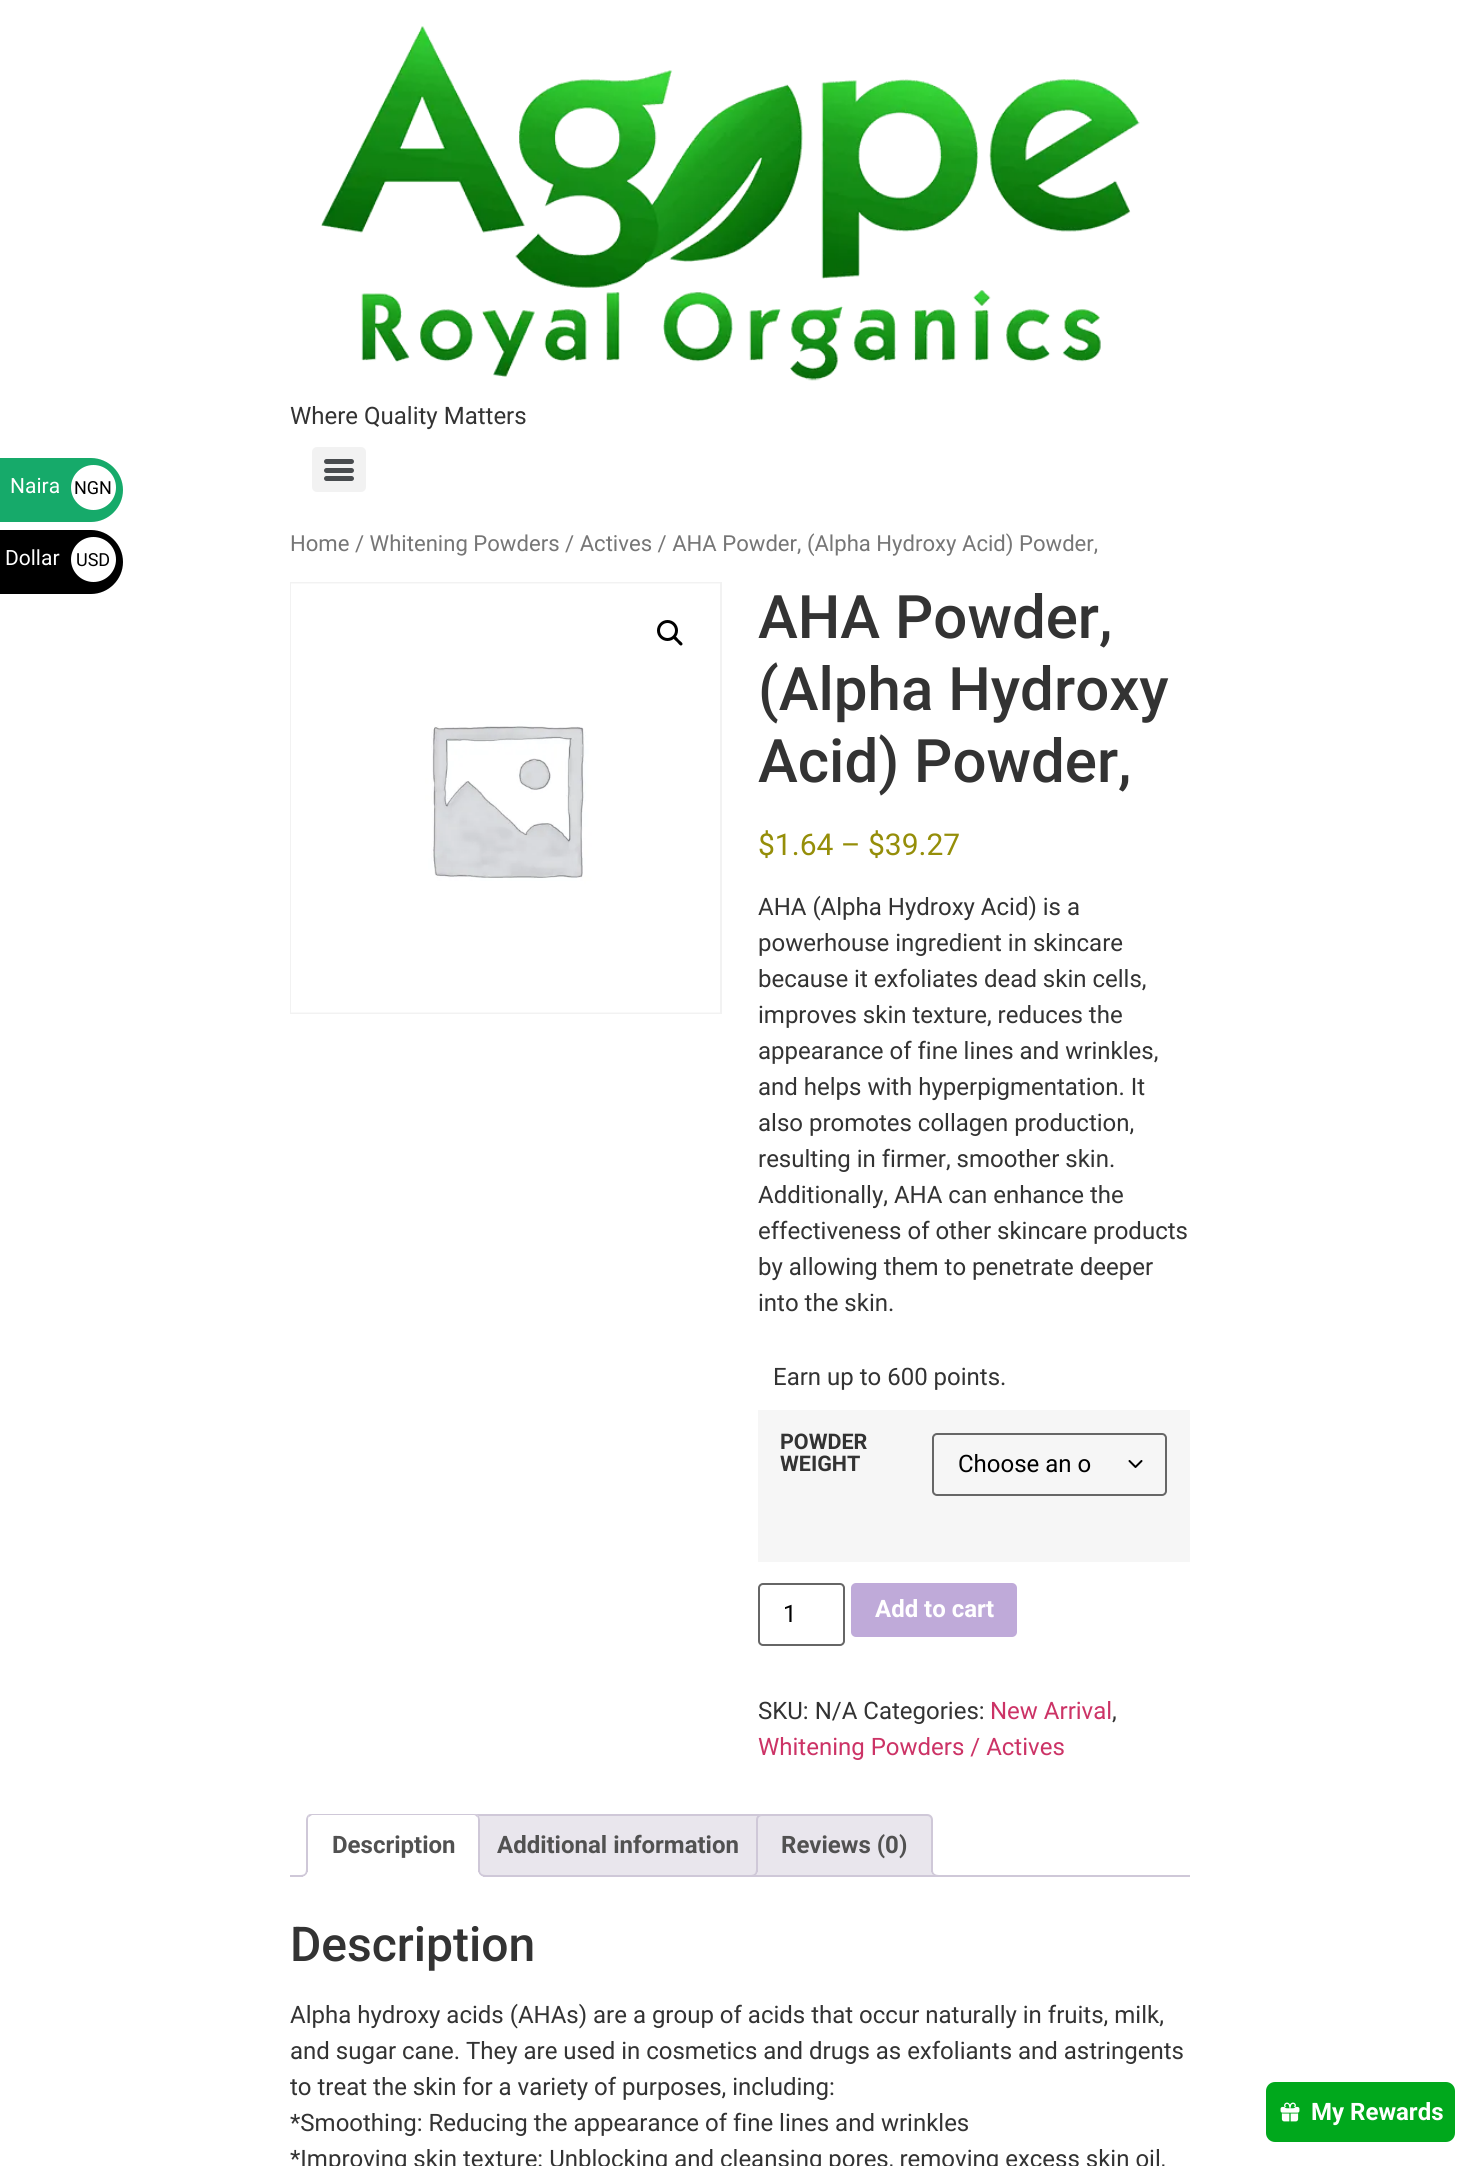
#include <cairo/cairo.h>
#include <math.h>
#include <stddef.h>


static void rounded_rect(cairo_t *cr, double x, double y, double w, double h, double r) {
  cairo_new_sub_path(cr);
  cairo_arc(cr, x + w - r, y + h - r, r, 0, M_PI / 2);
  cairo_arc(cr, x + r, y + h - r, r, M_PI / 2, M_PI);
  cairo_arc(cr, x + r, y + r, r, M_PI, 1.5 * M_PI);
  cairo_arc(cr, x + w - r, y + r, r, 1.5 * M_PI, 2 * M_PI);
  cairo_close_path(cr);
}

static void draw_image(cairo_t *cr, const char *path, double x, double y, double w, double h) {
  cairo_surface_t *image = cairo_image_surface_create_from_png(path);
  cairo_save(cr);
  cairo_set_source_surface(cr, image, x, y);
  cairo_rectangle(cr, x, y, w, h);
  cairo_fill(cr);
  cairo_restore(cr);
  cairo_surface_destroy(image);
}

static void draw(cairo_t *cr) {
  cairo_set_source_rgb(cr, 1, 1, 1);
  cairo_paint(cr);
  draw_image(cr, "images/1.png", 321, 26, 819, 355);
  cairo_set_source_rgb(cr, 242 / 255.0, 242 / 255.0, 242 / 255.0);
  rounded_rect(cr, 312, 447, 54, 45, 5);
  cairo_fill(cr);
  cairo_set_source_rgb(cr, 73 / 255.0, 76 / 255.0, 79 / 255.0);
  rounded_rect(cr, 324, 468, 30, 5, 2.5);
  cairo_fill(cr);
  rounded_rect(cr, 324, 459, 30, 5, 2.5);
  cairo_fill(cr);
  rounded_rect(cr, 324, 476, 30, 5, 2.5);
  cairo_fill(cr);
  cairo_set_source_rgb(cr, 22 / 255.0, 170 / 255.0, 106 / 255.0);
  cairo_new_path(cr);
  cairo_move_to(cr, -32, 458);
  cairo_line_to(cr, 91, 458);
  cairo_curve_to(cr, 108.5, 458, 123, 472.5, 123, 490);
  cairo_curve_to(cr, 123, 507.5, 108.5, 522, 91, 522);
  cairo_line_to(cr, -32, 522);
  cairo_close_path(cr);
  cairo_fill(cr);
  cairo_set_source_rgb(cr, 1, 1, 1);
  cairo_arc(cr, 93.5, 487.5, 22.5, 0, 2 * M_PI);
  cairo_fill(cr);
  cairo_set_source_rgb(cr, 0, 0, 0);
  cairo_new_path(cr);
  cairo_move_to(cr, -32, 530);
  cairo_line_to(cr, 91, 530);
  cairo_curve_to(cr, 108.5, 530, 123, 544.5, 123, 562);
  cairo_curve_to(cr, 123, 579.5, 108.5, 594, 91, 594);
  cairo_line_to(cr, -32, 594);
  cairo_close_path(cr);
  cairo_fill(cr);
  cairo_set_source_rgb(cr, 1, 1, 1);
  cairo_arc(cr, 93.5, 559.5, 22.5, 0, 2 * M_PI);
  cairo_fill(cr);
  cairo_rectangle(cr, 291, 583, 430, 430);
  cairo_set_source_rgb(cr, 242 / 255.0, 242 / 255.0, 242 / 255.0);
  cairo_stroke(cr);
  draw_image(cr, "images/2.png", 291, 583, 429, 430);
  cairo_arc(cr, 667.5, 630.5, 9, 0, 2 * M_PI);
  cairo_set_source_rgb(cr, 0, 0, 0);
  cairo_set_line_width(cr, 3);
  cairo_stroke(cr);
  cairo_new_path(cr);
  cairo_move_to(cr, 674, 636.5);
  cairo_curve_to(cr, 675.5, 635, 678, 639, 679, 640);
  cairo_curve_to(cr, 680, 641, 684, 643.5, 682, 645);
  cairo_curve_to(cr, 680.5, 647, 678, 643, 677, 642);
  cairo_curve_to(cr, 676, 641, 672, 638.5, 674, 636.5);
  cairo_close_path(cr);
  cairo_fill(cr);
  cairo_set_source_rgb(cr, 246 / 255.0, 246 / 255.0, 246 / 255.0);
  cairo_rectangle(cr, 758, 1410, 432, 152);
  cairo_fill(cr);
  cairo_new_path(cr);
  cairo_move_to(cr, 1129.5, 1461);
  cairo_line_to(cr, 1135.5, 1467);
  cairo_line_to(cr, 1141.5, 1461);
  cairo_set_source_rgb(cr, 0, 0, 0);
  cairo_set_line_width(cr, 2);
  cairo_set_line_cap(cr, CAIRO_LINE_CAP_ROUND);
  cairo_set_line_join(cr, CAIRO_LINE_JOIN_ROUND);
  cairo_stroke(cr);
  rounded_rect(cr, 933, 1434, 233, 61, 4);
  cairo_set_source_rgb(cr, 102 / 255.0, 102 / 255.0, 102 / 255.0);
  cairo_set_line_cap(cr, CAIRO_LINE_CAP_BUTT);
  cairo_set_line_join(cr, CAIRO_LINE_JOIN_MITER);
  cairo_stroke(cr);
  rounded_rect(cr, 759, 1584, 85, 61, 4);
  cairo_stroke(cr);
  cairo_set_source_rgb(cr, 191 / 255.0, 170 / 255.0, 217 / 255.0);
  rounded_rect(cr, 851, 1583, 166, 54, 5);
  cairo_fill(cr);
  cairo_set_source_rgb(cr, 233 / 255.0, 230 / 255.0, 237 / 255.0);
  cairo_new_path(cr);
  cairo_move_to(cr, 477, 1815);
  cairo_line_to(cr, 759, 1815);
  cairo_curve_to(cr, 762, 1815, 764, 1817, 764, 1820);
  cairo_line_to(cr, 764, 1876);
  cairo_line_to(cr, 472, 1876);
  cairo_line_to(cr, 472, 1820);
  cairo_curve_to(cr, 472, 1817, 474, 1815, 477, 1815);
  cairo_close_path(cr);
  cairo_fill_preserve(cr);
  cairo_set_source_rgb(cr, 207 / 255.0, 200 / 255.0, 216 / 255.0);
  cairo_stroke(cr);
  cairo_set_source_rgb(cr, 233 / 255.0, 230 / 255.0, 237 / 255.0);
  cairo_new_path(cr);
  cairo_move_to(cr, 762, 1815);
  cairo_line_to(cr, 927, 1815);
  cairo_curve_to(cr, 930, 1815, 932, 1817, 932, 1820);
  cairo_line_to(cr, 932, 1876);
  cairo_line_to(cr, 757, 1876);
  cairo_line_to(cr, 757, 1820);
  cairo_curve_to(cr, 757, 1817, 759, 1815, 762, 1815);
  cairo_close_path(cr);
  cairo_fill_preserve(cr);
  cairo_set_source_rgb(cr, 207 / 255.0, 200 / 255.0, 216 / 255.0);
  cairo_stroke(cr);
  cairo_save(cr);
  cairo_rectangle(cr, 290, 1814, 900, 63);
  cairo_clip(cr);
  cairo_set_source_rgb(cr, 233 / 255.0, 230 / 255.0, 237 / 255.0);
  cairo_new_path(cr);
  cairo_move_to(cr, 753, 1876.5);
  cairo_line_to(cr, 753, 1880);
  cairo_curve_to(cr, 759, 1880, 761, 1878, 761, 1872);
  cairo_line_to(cr, 757.5, 1872);
  cairo_curve_to(cr, 757, 1874, 755, 1876, 753, 1876.5);
  cairo_close_path(cr);
  cairo_fill(cr);
  cairo_restore(cr);
  cairo_set_fill_rule(cr, CAIRO_FILL_RULE_EVEN_ODD);
  cairo_new_path(cr);
  cairo_move_to(cr, 750, 1869);
  cairo_line_to(cr, 757.5, 1869);
  cairo_curve_to(cr, 757.5, 1874.5, 755.5, 1876.5, 750, 1876.5);
  cairo_close_path(cr);
  cairo_move_to(cr, 750, 1869);
  cairo_line_to(cr, 756, 1869);
  cairo_curve_to(cr, 756, 1873.5, 754.5, 1875, 750, 1875);
  cairo_close_path(cr);
  cairo_fill(cr);
  cairo_save(cr);
  cairo_set_fill_rule(cr, CAIRO_FILL_RULE_WINDING);
  cairo_rectangle(cr, 290, 1814, 900, 63);
  cairo_clip(cr);
  cairo_set_source_rgb(cr, 233 / 255.0, 230 / 255.0, 237 / 255.0);
  cairo_new_path(cr);
  cairo_move_to(cr, 929, 1872);
  cairo_curve_to(cr, 929, 1877, 930.5, 1880, 936, 1880);
  cairo_line_to(cr, 936, 1876.5);
  cairo_curve_to(cr, 934, 1876, 932, 1874, 931.5, 1872);
  cairo_close_path(cr);
  cairo_fill(cr);
  cairo_restore(cr);
  cairo_new_path(cr);
  cairo_move_to(cr, 931.5, 1869);
  cairo_line_to(cr, 939, 1869);
  cairo_line_to(cr, 939, 1876.5);
  cairo_curve_to(cr, 935, 1876.5, 931.5, 1875, 931.5, 1870.5);
  cairo_close_path(cr);
  cairo_move_to(cr, 933, 1869);
  cairo_line_to(cr, 939, 1869);
  cairo_line_to(cr, 939, 1875);
  cairo_curve_to(cr, 936, 1875, 933, 1874, 933, 1870.5);
  cairo_close_path(cr);
  cairo_fill(cr);
  cairo_rectangle(cr, 290, 1875, 900, 2);
  cairo_fill(cr);
  cairo_set_source_rgb(cr, 1, 1, 1);
  cairo_new_path(cr);
  cairo_move_to(cr, 312, 1814);
  cairo_line_to(cr, 474, 1814);
  cairo_curve_to(cr, 477.5, 1814, 480, 1816.5, 480, 1820);
  cairo_line_to(cr, 480, 1877);
  cairo_line_to(cr, 306, 1877);
  cairo_line_to(cr, 306, 1820);
  cairo_curve_to(cr, 306, 1816.5, 308.5, 1814, 312, 1814);
  cairo_close_path(cr);
  cairo_fill(cr);
  cairo_set_source_rgb(cr, 207 / 255.0, 200 / 255.0, 216 / 255.0);
  cairo_set_fill_rule(cr, CAIRO_FILL_RULE_WINDING);
  cairo_new_path(cr);
  cairo_move_to(cr, 312, 1814);
  cairo_curve_to(cr, 311, 1814, 309, 1814, 308, 1815);
  cairo_line_to(cr, 309, 1817);
  cairo_line_to(cr, 312, 1815);
  cairo_line_to(cr, 474, 1815);
  cairo_curve_to(cr, 475, 1815, 476, 1816, 477, 1817);
  cairo_line_to(cr, 478, 1815);
  cairo_curve_to(cr, 477, 1814, 475, 1814, 474, 1814);
  cairo_close_path(cr);
  cairo_fill(cr);
  cairo_new_path(cr);
  cairo_move_to(cr, 478, 1815);
  cairo_curve_to(cr, 479, 1816, 480, 1818, 480, 1820);
  cairo_line_to(cr, 480, 1876);
  cairo_line_to(cr, 478, 1874);
  cairo_line_to(cr, 478, 1820);
  cairo_curve_to(cr, 478, 1819, 478, 1817, 477, 1817);
  cairo_close_path(cr);
  cairo_fill(cr);
  cairo_set_source_rgb(cr, 1, 1, 1);
  cairo_new_path(cr);
  cairo_move_to(cr, 480, 1876);
  cairo_line_to(cr, 306, 1876);
  cairo_line_to(cr, 308, 1874);
  cairo_line_to(cr, 308, 1875);
  cairo_line_to(cr, 478, 1875);
  cairo_line_to(cr, 478, 1874);
  cairo_close_path(cr);
  cairo_fill(cr);
  cairo_set_source_rgb(cr, 207 / 255.0, 200 / 255.0, 216 / 255.0);
  cairo_new_path(cr);
  cairo_move_to(cr, 306, 1820);
  cairo_line_to(cr, 306, 1876);
  cairo_line_to(cr, 308, 1874);
  cairo_line_to(cr, 308, 1820);
  cairo_curve_to(cr, 308, 1819, 308, 1817, 309, 1817);
  cairo_line_to(cr, 308, 1815);
  cairo_curve_to(cr, 307, 1816, 306, 1818, 306, 1820);
  cairo_close_path(cr);
  cairo_fill(cr);
  cairo_save(cr);
  cairo_rectangle(cr, 290, 1814, 900, 63);
  cairo_clip(cr);
  cairo_set_source_rgb(cr, 1, 1, 1);
  cairo_new_path(cr);
  cairo_move_to(cr, 303, 1876.5);
  cairo_line_to(cr, 303, 1880);
  cairo_curve_to(cr, 309, 1880, 311, 1878, 311, 1872);
  cairo_line_to(cr, 307.5, 1872);
  cairo_curve_to(cr, 307, 1874, 305, 1876, 303, 1876.5);
  cairo_close_path(cr);
  cairo_fill(cr);
  cairo_restore(cr);
  cairo_set_fill_rule(cr, CAIRO_FILL_RULE_EVEN_ODD);
  cairo_new_path(cr);
  cairo_move_to(cr, 300, 1869);
  cairo_line_to(cr, 307.5, 1869);
  cairo_curve_to(cr, 307.5, 1874.5, 305.5, 1876.5, 300, 1876.5);
  cairo_close_path(cr);
  cairo_move_to(cr, 300, 1869);
  cairo_line_to(cr, 306, 1869);
  cairo_curve_to(cr, 306, 1873.5, 304.5, 1875, 300, 1875);
  cairo_close_path(cr);
  cairo_fill(cr);
  cairo_save(cr);
  cairo_set_fill_rule(cr, CAIRO_FILL_RULE_WINDING);
  cairo_rectangle(cr, 290, 1814, 900, 63);
  cairo_clip(cr);
  cairo_set_source_rgb(cr, 1, 1, 1);
  cairo_new_path(cr);
  cairo_move_to(cr, 476, 1872);
  cairo_curve_to(cr, 476, 1877, 477.5, 1880, 483, 1880);
  cairo_line_to(cr, 483, 1876.5);
  cairo_curve_to(cr, 481, 1876, 479, 1874, 478.5, 1872);
  cairo_close_path(cr);
  cairo_fill(cr);
  cairo_restore(cr);
  cairo_new_path(cr);
  cairo_move_to(cr, 478.5, 1869);
  cairo_line_to(cr, 486, 1869);
  cairo_line_to(cr, 486, 1876.5);
  cairo_curve_to(cr, 482, 1876.5, 478.5, 1875, 478.5, 1870.5);
  cairo_close_path(cr);
  cairo_move_to(cr, 480, 1869);
  cairo_line_to(cr, 486, 1869);
  cairo_line_to(cr, 486, 1875);
  cairo_curve_to(cr, 483, 1875, 480, 1874, 480, 1870.5);
  cairo_close_path(cr);
  cairo_fill(cr);
  cairo_set_source_rgb(cr, 0, 168 / 255.0, 28 / 255.0);
  rounded_rect(cr, 1266, 2082, 189, 60, 9);
  cairo_fill(cr);
  draw_image(cr, "images/3.png", 1280, 2102, 20, 20);
  cairo_select_font_face(cr, "Roboto", CAIRO_FONT_SLANT_NORMAL, CAIRO_FONT_WEIGHT_NORMAL);
  cairo_set_font_size(cr, 24);
  cairo_set_source_rgb(cr, 51 / 255.0, 51 / 255.0, 51 / 255.0);
  cairo_move_to(cr, 290, 424);
  cairo_show_text(cr, "Where Quality Matters");
  cairo_set_font_size(cr, 21);
  cairo_set_source_rgb(cr, 1, 1, 1);
  cairo_move_to(cr, 10, 493);
  cairo_show_text(cr, "Naira");
  cairo_set_font_size(cr, 18);
  cairo_set_source_rgb(cr, 0, 0, 0);
  cairo_move_to(cr, 74, 494);
  cairo_show_text(cr, "NGN");
  cairo_set_font_size(cr, 21);
  cairo_set_source_rgb(cr, 1, 1, 1);
  cairo_move_to(cr, 5, 565);
  cairo_show_text(cr, "Dollar");
  cairo_set_font_size(cr, 18);
  cairo_set_source_rgb(cr, 0, 0, 0);
  cairo_move_to(cr, 76, 566);
  cairo_show_text(cr, "USD");
  cairo_set_font_size(cr, 22.1);
  cairo_set_source_rgb(cr, 118 / 255.0, 118 / 255.0, 118 / 255.0);
  cairo_move_to(cr, 290, 551);
  cairo_show_text(cr, "Home / Whitening Powders / Actives / AHA Powder, (Alpha Hydroxy Acid) Powder,");
  cairo_select_font_face(cr, "Roboto Medium", CAIRO_FONT_SLANT_NORMAL, CAIRO_FONT_WEIGHT_NORMAL);
  cairo_set_font_size(cr, 60);
  cairo_set_source_rgb(cr, 51 / 255.0, 51 / 255.0, 51 / 255.0);
  cairo_move_to(cr, 758, 638);
  cairo_show_text(cr, "AHA Powder,");
  cairo_move_to(cr, 758, 710);
  cairo_show_text(cr, "(Alpha Hydroxy");
  cairo_move_to(cr, 758, 782);
  cairo_show_text(cr, "Acid) Powder,");
  cairo_select_font_face(cr, "Roboto", CAIRO_FONT_SLANT_NORMAL, CAIRO_FONT_WEIGHT_NORMAL);
  cairo_set_font_size(cr, 30);
  cairo_set_source_rgb(cr, 149 / 255.0, 142 / 255.0, 9 / 255.0);
  cairo_move_to(cr, 758, 855);
  cairo_show_text(cr, "$1.64 – $39.27");
  cairo_set_font_size(cr, 24);
  cairo_set_source_rgb(cr, 51 / 255.0, 51 / 255.0, 51 / 255.0);
  cairo_move_to(cr, 758, 915);
  cairo_show_text(cr, "AHA (Alpha Hydroxy Acid) is a");
  cairo_move_to(cr, 758, 951);
  cairo_show_text(cr, "powerhouse ingredient in skincare");
  cairo_move_to(cr, 758, 987);
  cairo_show_text(cr, "because it exfoliates dead skin cells,");
  cairo_move_to(cr, 758, 1023);
  cairo_show_text(cr, "improves skin texture, reduces the");
  cairo_move_to(cr, 758, 1059);
  cairo_show_text(cr, "appearance of fine lines and wrinkles,");
  cairo_move_to(cr, 758, 1095);
  cairo_show_text(cr, "and helps with hyperpigmentation. It");
  cairo_move_to(cr, 758, 1131);
  cairo_show_text(cr, "also promotes collagen production,");
  cairo_move_to(cr, 758, 1167);
  cairo_show_text(cr, "resulting in firmer, smoother skin.");
  cairo_move_to(cr, 758, 1203);
  cairo_show_text(cr, "Additionally, AHA can enhance the");
  cairo_move_to(cr, 758, 1239);
  cairo_show_text(cr, "effectiveness of other skincare products");
  cairo_move_to(cr, 758, 1275);
  cairo_show_text(cr, "by allowing them to penetrate deeper");
  cairo_move_to(cr, 758, 1311);
  cairo_show_text(cr, "into the skin.");
  cairo_move_to(cr, 773, 1385);
  cairo_show_text(cr, "Earn up to 600 points.");
  cairo_select_font_face(cr, "Roboto", CAIRO_FONT_SLANT_NORMAL, CAIRO_FONT_WEIGHT_BOLD);
  cairo_set_font_size(cr, 21.5);
  cairo_move_to(cr, 780, 1449);
  cairo_show_text(cr, "POWDER");
  cairo_move_to(cr, 780, 1471);
  cairo_show_text(cr, "WEIGHT");
  cairo_select_font_face(cr, "Roboto", CAIRO_FONT_SLANT_NORMAL, CAIRO_FONT_WEIGHT_NORMAL);
  cairo_set_font_size(cr, 24);
  cairo_set_source_rgb(cr, 0, 0, 0);
  cairo_move_to(cr, 958, 1472);
  cairo_show_text(cr, "Choose an o");
  cairo_move_to(cr, 783, 1622);
  cairo_show_text(cr, "1");
  cairo_select_font_face(cr, "Roboto", CAIRO_FONT_SLANT_NORMAL, CAIRO_FONT_WEIGHT_BOLD);
  cairo_set_source_rgb(cr, 1, 1, 1);
  cairo_move_to(cr, 875, 1617);
  cairo_show_text(cr, "Add to cart");
  cairo_select_font_face(cr, "Roboto", CAIRO_FONT_SLANT_NORMAL, CAIRO_FONT_WEIGHT_NORMAL);
  cairo_set_source_rgb(cr, 51 / 255.0, 51 / 255.0, 51 / 255.0);
  cairo_move_to(cr, 758, 1719);
  cairo_show_text(cr, "SKU: N/A Categories:");
  cairo_set_source_rgb(cr, 204 / 255.0, 51 / 255.0, 102 / 255.0);
  cairo_move_to(cr, 990, 1719);
  cairo_show_text(cr, "New Arrival");
  cairo_set_source_rgb(cr, 51 / 255.0, 51 / 255.0, 51 / 255.0);
  cairo_move_to(cr, 1112, 1719);
  cairo_show_text(cr, ",");
  cairo_set_source_rgb(cr, 204 / 255.0, 51 / 255.0, 102 / 255.0);
  cairo_move_to(cr, 758, 1755);
  cairo_show_text(cr, "Whitening Powders / Actives");
  cairo_select_font_face(cr, "Roboto", CAIRO_FONT_SLANT_NORMAL, CAIRO_FONT_WEIGHT_BOLD);
  cairo_set_source_rgb(cr, 81 / 255.0, 81 / 255.0, 81 / 255.0);
  cairo_move_to(cr, 332, 1853);
  cairo_show_text(cr, "Description");
  cairo_move_to(cr, 497, 1853);
  cairo_show_text(cr, "Additional information");
  cairo_move_to(cr, 781, 1853);
  cairo_show_text(cr, "Reviews (0)");
  cairo_select_font_face(cr, "Roboto Medium", CAIRO_FONT_SLANT_NORMAL, CAIRO_FONT_WEIGHT_NORMAL);
  cairo_set_font_size(cr, 48);
  cairo_set_source_rgb(cr, 51 / 255.0, 51 / 255.0, 51 / 255.0);
  cairo_move_to(cr, 290, 1961);
  cairo_show_text(cr, "Description");
  cairo_select_font_face(cr, "Roboto", CAIRO_FONT_SLANT_NORMAL, CAIRO_FONT_WEIGHT_NORMAL);
  cairo_set_font_size(cr, 24);
  cairo_move_to(cr, 290, 2023);
  cairo_show_text(cr, "Alpha hydroxy acids (AHAs) are a group of acids that occur naturally in fruits, milk,");
  cairo_move_to(cr, 290, 2059);
  cairo_show_text(cr, "and sugar cane. They are used in cosmetics and drugs as exfoliants and astringents");
  cairo_move_to(cr, 290, 2095);
  cairo_show_text(cr, "to treat the skin for a variety of purposes, including:");
  cairo_move_to(cr, 290, 2131);
  cairo_show_text(cr, "*Smoothing: Reducing the appearance of fine lines and wrinkles");
  cairo_move_to(cr, 290, 2167);
  cairo_show_text(cr, "*Improving skin texture: Unblocking and cleansing pores, removing excess skin oil,");
  cairo_select_font_face(cr, "Roboto", CAIRO_FONT_SLANT_NORMAL, CAIRO_FONT_WEIGHT_BOLD);
  cairo_set_source_rgb(cr, 1, 1, 1);
  cairo_move_to(cr, 1311, 2120);
  cairo_show_text(cr, "My Rewards");
}

int main(void) {
  cairo_surface_t *surface = cairo_image_surface_create(CAIRO_FORMAT_RGB24, 1479, 2166);
  cairo_t *cr = cairo_create(surface);
  cairo_font_options_t *options = cairo_font_options_create();
  cairo_font_options_set_hint_metrics(options, CAIRO_HINT_METRICS_OFF);
  cairo_font_options_set_hint_style(options, CAIRO_HINT_STYLE_NONE);
  cairo_set_font_options(cr, options);
  cairo_set_miter_limit(cr, 4);
  draw(cr);
  cairo_surface_write_to_png(surface, "out.png");
  cairo_font_options_destroy(options);
  cairo_destroy(cr);
  cairo_surface_destroy(surface);
  return 0;
}
